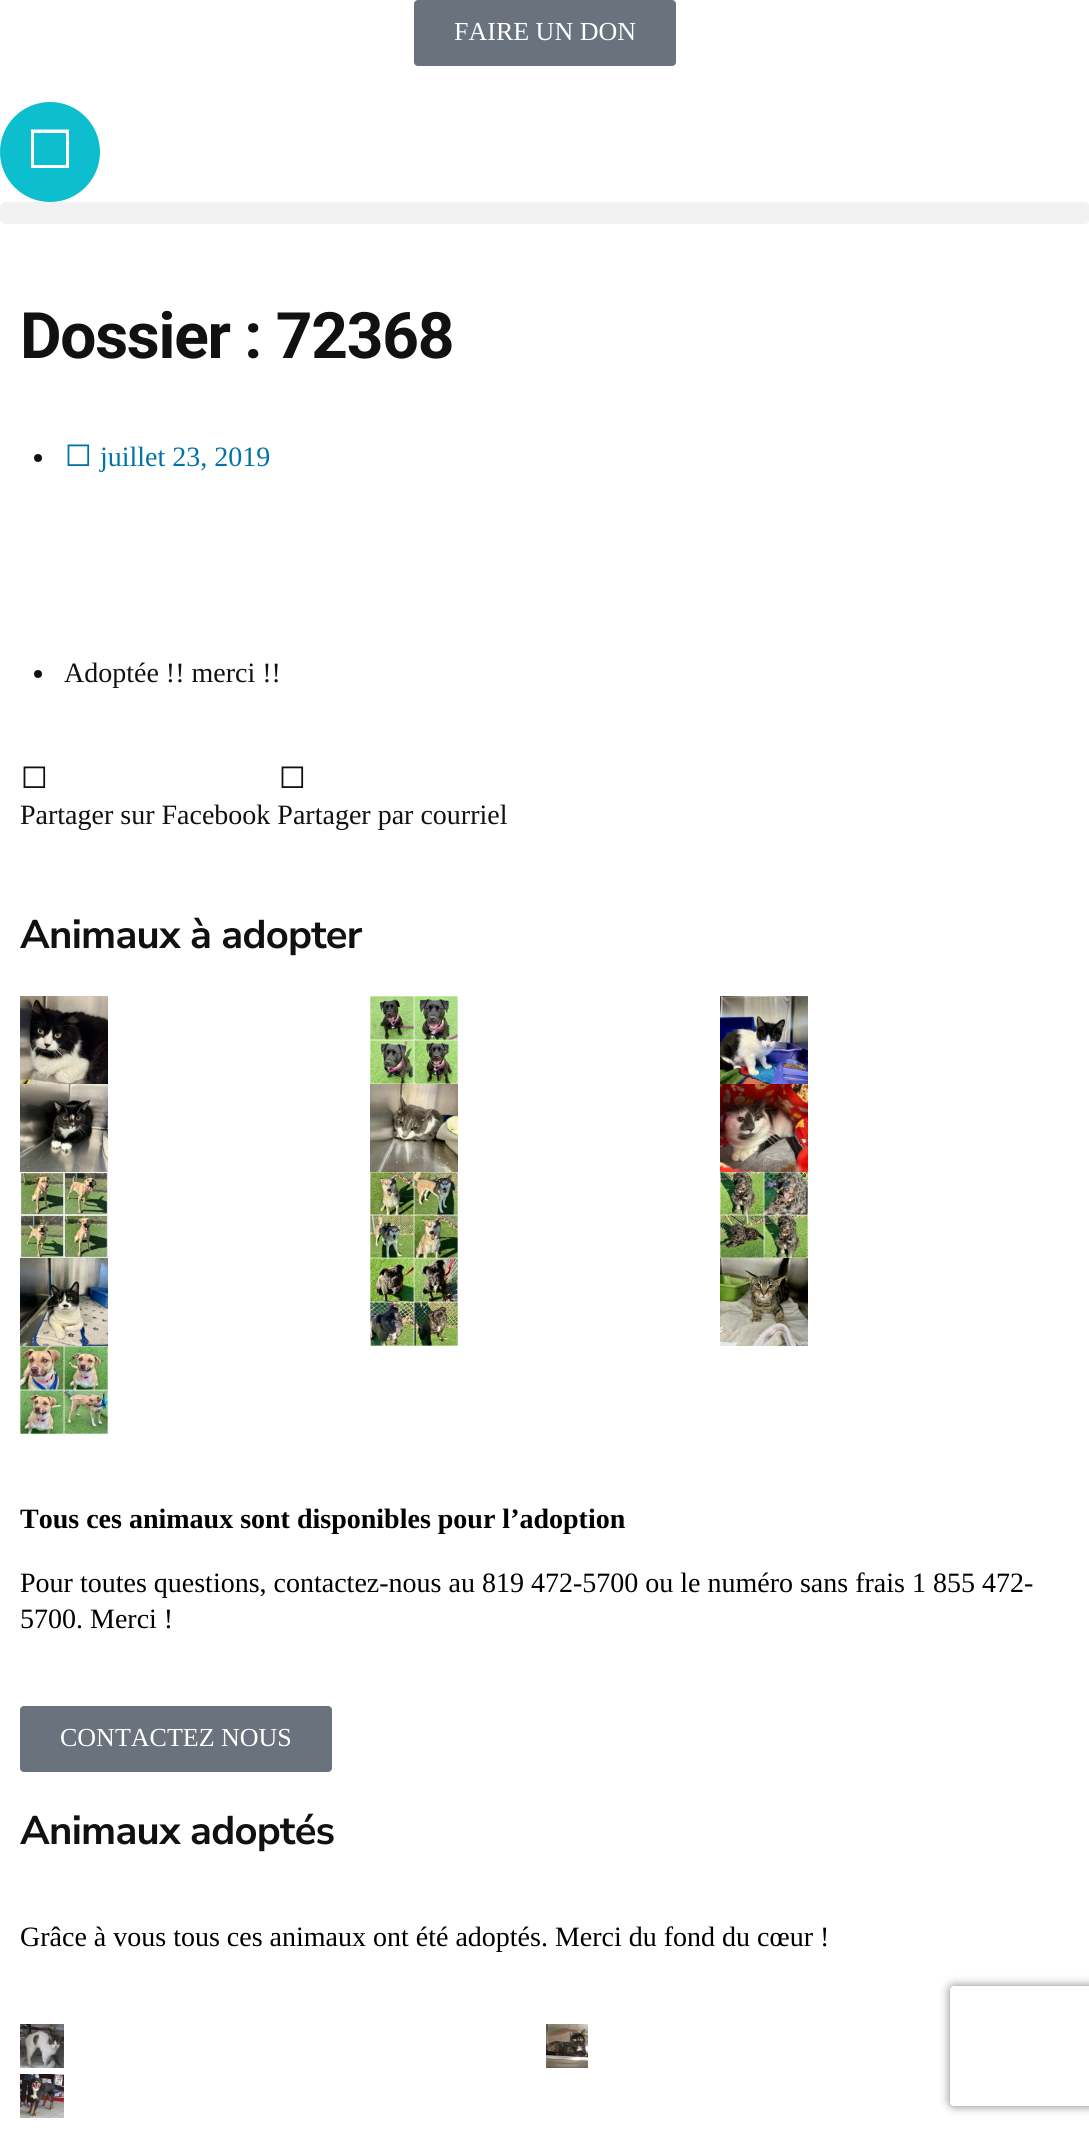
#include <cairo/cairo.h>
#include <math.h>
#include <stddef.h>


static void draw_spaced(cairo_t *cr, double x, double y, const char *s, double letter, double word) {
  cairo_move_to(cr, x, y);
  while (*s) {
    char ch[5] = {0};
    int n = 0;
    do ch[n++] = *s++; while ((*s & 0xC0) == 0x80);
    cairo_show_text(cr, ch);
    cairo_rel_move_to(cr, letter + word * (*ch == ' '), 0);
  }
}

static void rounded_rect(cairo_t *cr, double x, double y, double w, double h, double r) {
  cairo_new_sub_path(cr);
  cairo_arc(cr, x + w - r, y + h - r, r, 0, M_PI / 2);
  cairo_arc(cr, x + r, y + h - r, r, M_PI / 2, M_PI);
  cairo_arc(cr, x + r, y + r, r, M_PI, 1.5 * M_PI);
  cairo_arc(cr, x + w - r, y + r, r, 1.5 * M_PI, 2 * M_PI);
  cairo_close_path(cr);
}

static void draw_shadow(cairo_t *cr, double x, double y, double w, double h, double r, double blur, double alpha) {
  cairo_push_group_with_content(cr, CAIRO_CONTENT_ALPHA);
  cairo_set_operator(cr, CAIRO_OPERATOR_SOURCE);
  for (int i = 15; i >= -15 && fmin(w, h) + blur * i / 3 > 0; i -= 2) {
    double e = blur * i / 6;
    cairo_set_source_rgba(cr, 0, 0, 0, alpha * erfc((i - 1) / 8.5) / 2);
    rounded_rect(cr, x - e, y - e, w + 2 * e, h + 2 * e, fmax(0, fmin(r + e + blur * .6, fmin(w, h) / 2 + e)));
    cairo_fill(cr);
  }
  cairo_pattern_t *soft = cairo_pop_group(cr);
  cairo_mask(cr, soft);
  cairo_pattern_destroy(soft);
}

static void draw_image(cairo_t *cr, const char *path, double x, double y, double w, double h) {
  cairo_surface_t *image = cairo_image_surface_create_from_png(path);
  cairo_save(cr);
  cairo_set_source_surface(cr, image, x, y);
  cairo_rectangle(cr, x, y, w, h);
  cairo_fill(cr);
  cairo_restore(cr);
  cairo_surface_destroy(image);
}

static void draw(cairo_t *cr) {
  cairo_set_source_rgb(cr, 1, 1, 1);
  cairo_paint(cr);
  cairo_set_source_rgb(cr, 105 / 255.0, 114 / 255.0, 125 / 255.0);
  rounded_rect(cr, 414, 0, 262, 66, 4);
  cairo_fill(cr);
  cairo_set_source_rgb(cr, 12 / 255.0, 190 / 255.0, 206 / 255.0);
  cairo_arc(cr, 50, 152, 50, 0, 2 * M_PI);
  cairo_fill(cr);
  cairo_set_source_rgb(cr, 1, 1, 1);
  cairo_new_path(cr);
  cairo_move_to(cr, 31, 168);
  cairo_line_to(cr, 69, 168);
  cairo_line_to(cr, 69, 129.5);
  cairo_line_to(cr, 31, 129.5);
  cairo_close_path(cr);
  cairo_move_to(cr, 34, 165);
  cairo_line_to(cr, 34, 133);
  cairo_line_to(cr, 66, 133);
  cairo_line_to(cr, 66, 165);
  cairo_close_path(cr);
  cairo_fill(cr);
  cairo_set_source_rgb(cr, 242 / 255.0, 242 / 255.0, 242 / 255.0);
  rounded_rect(cr, 0, 202, 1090, 22, 6);
  cairo_fill(cr);
  cairo_set_source_rgb(cr, 17 / 255.0, 17 / 255.0, 17 / 255.0);
  cairo_arc(cr, 38, 458, 4, 0, 2 * M_PI);
  cairo_fill(cr);
  draw_image(cr, "images/1.png", 67, 444, 23, 22);
  cairo_arc(cr, 38, 674, 4, 0, 2 * M_PI);
  cairo_fill(cr);
  draw_image(cr, "images/2.png", 281, 766, 23, 22);
  draw_image(cr, "images/2.png", 23, 766, 23, 22);
  draw_image(cr, "images/3.png", 20, 996, 88, 88);
  draw_image(cr, "images/4.png", 370, 996, 88, 88);
  draw_image(cr, "images/5.png", 720, 996, 88, 88);
  draw_image(cr, "images/6.png", 20, 1084, 88, 88);
  draw_image(cr, "images/7.png", 370, 1084, 88, 88);
  draw_image(cr, "images/8.png", 720, 1084, 88, 88);
  draw_image(cr, "images/9.png", 20, 1172, 88, 86);
  draw_image(cr, "images/10.png", 370, 1172, 88, 86);
  draw_image(cr, "images/11.png", 720, 1172, 88, 86);
  draw_image(cr, "images/12.png", 20, 1258, 88, 88);
  draw_image(cr, "images/13.png", 370, 1258, 88, 88);
  draw_image(cr, "images/14.png", 720, 1258, 88, 88);
  draw_image(cr, "images/15.png", 20, 1346, 88, 88);
  cairo_set_source_rgb(cr, 105 / 255.0, 114 / 255.0, 125 / 255.0);
  rounded_rect(cr, 20, 1706, 312, 66, 4);
  cairo_fill(cr);
  draw_image(cr, "images/16.png", 20, 2024, 44, 44);
  draw_image(cr, "images/17.png", 546, 2024, 42, 44);
  draw_image(cr, "images/18.png", 20, 2074, 44, 44);
  cairo_save(cr);
  cairo_set_fill_rule(cr, CAIRO_FILL_RULE_EVEN_ODD);
  cairo_new_path(cr);
  cairo_move_to(cr, 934, 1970);
  cairo_line_to(cr, 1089, 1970);
  cairo_line_to(cr, 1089, 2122);
  cairo_line_to(cr, 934, 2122);
  cairo_close_path(cr);
  cairo_move_to(cr, 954, 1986);
  cairo_line_to(cr, 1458, 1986);
  cairo_curve_to(cr, 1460, 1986, 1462, 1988, 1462, 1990);
  cairo_line_to(cr, 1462, 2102);
  cairo_curve_to(cr, 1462, 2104, 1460, 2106, 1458, 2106);
  cairo_line_to(cr, 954, 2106);
  cairo_curve_to(cr, 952, 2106, 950, 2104, 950, 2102);
  cairo_line_to(cr, 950, 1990);
  cairo_curve_to(cr, 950, 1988, 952, 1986, 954, 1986);
  cairo_close_path(cr);
  cairo_clip(cr);
  cairo_set_source_rgb(cr, 128 / 255.0, 128 / 255.0, 128 / 255.0);
  draw_shadow(cr, 950, 1986, 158, 120, 4, 5, 1);
  cairo_restore(cr);
  cairo_select_font_face(cr, "Liberation Serif", CAIRO_FONT_SLANT_NORMAL, CAIRO_FONT_WEIGHT_NORMAL);
  cairo_set_font_size(cr, 26);
  cairo_set_source_rgb(cr, 1, 1, 1);
  cairo_move_to(cr, 454, 40);
  cairo_show_text(cr, "FAIRE UN DON");
  cairo_select_font_face(cr, "Roboto", CAIRO_FONT_SLANT_NORMAL, CAIRO_FONT_WEIGHT_BOLD);
  cairo_set_font_size(cr, 64);
  cairo_set_source_rgb(cr, 17 / 255.0, 17 / 255.0, 17 / 255.0);
  draw_spaced(cr, 20, 358, "Dossier : 72368", -1.25, 0);
  cairo_select_font_face(cr, "Liberation Serif", CAIRO_FONT_SLANT_NORMAL, CAIRO_FONT_WEIGHT_NORMAL);
  cairo_set_font_size(cr, 28);
  cairo_set_source_rgb(cr, 0, 115 / 255.0, 170 / 255.0);
  cairo_move_to(cr, 100, 466);
  cairo_show_text(cr, "juillet 23, 2019");
  cairo_set_source_rgb(cr, 17 / 255.0, 17 / 255.0, 17 / 255.0);
  cairo_move_to(cr, 64, 682);
  cairo_show_text(cr, "Adoptée !! merci !!");
  cairo_move_to(cr, 20, 824);
  cairo_show_text(cr, "Partager sur Facebook Partager par courriel");
  cairo_select_font_face(cr, "Nunito Sans", CAIRO_FONT_SLANT_NORMAL, CAIRO_FONT_WEIGHT_BOLD);
  cairo_set_font_size(cr, 40);
  draw_spaced(cr, 20, 948, "Animaux à adopter", -0.75, 0);
  cairo_select_font_face(cr, "Liberation Serif", CAIRO_FONT_SLANT_NORMAL, CAIRO_FONT_WEIGHT_BOLD);
  cairo_set_font_size(cr, 28);
  cairo_set_source_rgb(cr, 0, 0, 0);
  cairo_move_to(cr, 20, 1528);
  cairo_show_text(cr, "Tous ces animaux sont disponibles pour l’adoption");
  cairo_select_font_face(cr, "Liberation Serif", CAIRO_FONT_SLANT_NORMAL, CAIRO_FONT_WEIGHT_NORMAL);
  cairo_move_to(cr, 20, 1592);
  cairo_show_text(cr, "Pour toutes questions, contactez-nous au 819 472-5700 ou le numéro sans frais 1 855 472-");
  cairo_move_to(cr, 20, 1628);
  cairo_show_text(cr, "5700. Merci !");
  cairo_set_font_size(cr, 26);
  cairo_set_source_rgb(cr, 1, 1, 1);
  cairo_move_to(cr, 60, 1746);
  cairo_show_text(cr, "CONTACTEZ NOUS");
  cairo_select_font_face(cr, "Nunito Sans", CAIRO_FONT_SLANT_NORMAL, CAIRO_FONT_WEIGHT_BOLD);
  cairo_set_font_size(cr, 40);
  cairo_set_source_rgb(cr, 17 / 255.0, 17 / 255.0, 17 / 255.0);
  draw_spaced(cr, 20, 1844, "Animaux adoptés", -0.75, 0);
  cairo_select_font_face(cr, "Liberation Serif", CAIRO_FONT_SLANT_NORMAL, CAIRO_FONT_WEIGHT_NORMAL);
  cairo_set_font_size(cr, 28);
  cairo_set_source_rgb(cr, 0, 0, 0);
  cairo_move_to(cr, 20, 1946);
  cairo_show_text(cr, "Grâce à vous tous ces animaux ont été adoptés. Merci du fond du cœur !");
}

int main(void) {
  cairo_surface_t *surface = cairo_image_surface_create(CAIRO_FORMAT_RGB24, 1089, 2133);
  cairo_t *cr = cairo_create(surface);
  cairo_font_options_t *options = cairo_font_options_create();
  cairo_font_options_set_hint_metrics(options, CAIRO_HINT_METRICS_OFF);
  cairo_font_options_set_hint_style(options, CAIRO_HINT_STYLE_NONE);
  cairo_set_font_options(cr, options);
  cairo_set_miter_limit(cr, 4);
  draw(cr);
  cairo_surface_write_to_png(surface, "out.png");
  cairo_font_options_destroy(options);
  cairo_destroy(cr);
  cairo_surface_destroy(surface);
  return 0;
}
